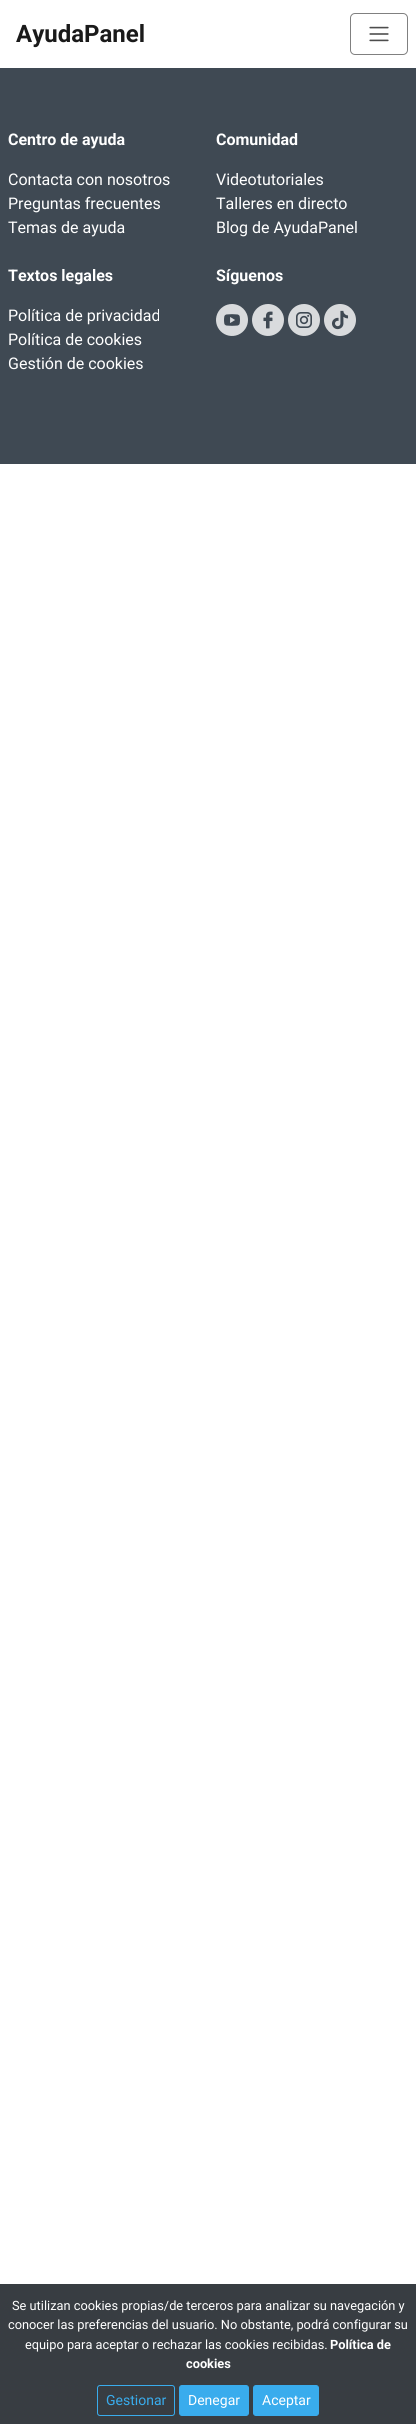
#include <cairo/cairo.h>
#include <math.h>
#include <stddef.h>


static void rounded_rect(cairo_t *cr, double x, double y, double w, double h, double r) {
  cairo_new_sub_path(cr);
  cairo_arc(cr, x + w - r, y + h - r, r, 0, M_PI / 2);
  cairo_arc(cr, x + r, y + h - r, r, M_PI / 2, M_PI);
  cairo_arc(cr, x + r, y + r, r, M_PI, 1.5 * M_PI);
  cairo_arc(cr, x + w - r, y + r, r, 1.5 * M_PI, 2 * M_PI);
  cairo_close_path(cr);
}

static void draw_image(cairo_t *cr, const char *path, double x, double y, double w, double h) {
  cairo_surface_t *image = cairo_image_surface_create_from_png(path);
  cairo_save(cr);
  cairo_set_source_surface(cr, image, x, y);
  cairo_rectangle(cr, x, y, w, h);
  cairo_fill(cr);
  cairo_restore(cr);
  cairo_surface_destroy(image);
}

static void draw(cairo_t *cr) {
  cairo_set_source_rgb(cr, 1, 1, 1);
  cairo_paint(cr);
  rounded_rect(cr, 350.5, 13.5, 57, 41, 4.5);
  cairo_set_source_rgb(cr, 128 / 255.0, 128 / 255.0, 128 / 255.0);
  cairo_set_line_width(cr, 1);
  cairo_stroke(cr);
  draw_image(cr, "images/1.png", 369, 26, 20, 16);
  cairo_set_source_rgb(cr, 63 / 255.0, 73 / 255.0, 83 / 255.0);
  cairo_rectangle(cr, 0, 68, 416, 396);
  cairo_fill(cr);
  draw_image(cr, "images/2.png", 216, 304, 32, 32);
  draw_image(cr, "images/3.png", 252, 304, 32, 32);
  draw_image(cr, "images/4.png", 288, 304, 32, 32);
  draw_image(cr, "images/5.png", 324, 304, 32, 32);
  cairo_set_source_rgb(cr, 56 / 255.0, 61 / 255.0, 66 / 255.0);
  cairo_rectangle(cr, 0, 2284, 416, 140);
  cairo_fill(cr);
  rounded_rect(cr, 97.5, 2385.5, 77, 30, 2.5);
  cairo_set_source_rgb(cr, 57 / 255.0, 172 / 255.0, 237 / 255.0);
  cairo_stroke(cr);
  rounded_rect(cr, 179.5, 2385.5, 69, 30, 2.5);
  cairo_fill_preserve(cr);
  cairo_stroke(cr);
  rounded_rect(cr, 253.5, 2385.5, 65, 30, 2.5);
  cairo_fill_preserve(cr);
  cairo_stroke(cr);
  cairo_select_font_face(cr, "Roboto", CAIRO_FONT_SLANT_NORMAL, CAIRO_FONT_WEIGHT_BOLD);
  cairo_set_font_size(cr, 24);
  cairo_set_source_rgb(cr, 26 / 255.0, 26 / 255.0, 26 / 255.0);
  cairo_move_to(cr, 16, 42);
  cairo_show_text(cr, "AyudaPanel");
  cairo_set_font_size(cr, 16);
  cairo_set_source_rgb(cr, 1, 1, 1);
  cairo_move_to(cr, 8, 145);
  cairo_show_text(cr, "Centro de ayuda");
  cairo_select_font_face(cr, "Roboto", CAIRO_FONT_SLANT_NORMAL, CAIRO_FONT_WEIGHT_NORMAL);
  cairo_move_to(cr, 8, 185);
  cairo_show_text(cr, "Contacta con nosotros");
  cairo_move_to(cr, 8, 209);
  cairo_show_text(cr, "Preguntas frecuentes");
  cairo_move_to(cr, 8, 233);
  cairo_show_text(cr, "Temas de ayuda");
  cairo_select_font_face(cr, "Roboto", CAIRO_FONT_SLANT_NORMAL, CAIRO_FONT_WEIGHT_BOLD);
  cairo_move_to(cr, 216, 145);
  cairo_show_text(cr, "Comunidad");
  cairo_select_font_face(cr, "Roboto", CAIRO_FONT_SLANT_NORMAL, CAIRO_FONT_WEIGHT_NORMAL);
  cairo_move_to(cr, 216, 185);
  cairo_show_text(cr, "Videotutoriales");
  cairo_move_to(cr, 216, 209);
  cairo_show_text(cr, "Talleres en directo");
  cairo_move_to(cr, 216, 233);
  cairo_show_text(cr, "Blog de AyudaPanel");
  cairo_select_font_face(cr, "Roboto", CAIRO_FONT_SLANT_NORMAL, CAIRO_FONT_WEIGHT_BOLD);
  cairo_move_to(cr, 8, 281);
  cairo_show_text(cr, "Textos legales");
  cairo_select_font_face(cr, "Roboto", CAIRO_FONT_SLANT_NORMAL, CAIRO_FONT_WEIGHT_NORMAL);
  cairo_move_to(cr, 8, 321);
  cairo_show_text(cr, "Política de privacidad");
  cairo_move_to(cr, 8, 345);
  cairo_show_text(cr, "Política de cookies");
  cairo_move_to(cr, 8, 369);
  cairo_show_text(cr, "Gestión de cookies");
  cairo_select_font_face(cr, "Roboto", CAIRO_FONT_SLANT_NORMAL, CAIRO_FONT_WEIGHT_BOLD);
  cairo_move_to(cr, 216, 281);
  cairo_show_text(cr, "Síguenos");
  cairo_select_font_face(cr, "Roboto", CAIRO_FONT_SLANT_NORMAL, CAIRO_FONT_WEIGHT_NORMAL);
  cairo_set_font_size(cr, 12.8);
  cairo_move_to(cr, 12, 2310);
  cairo_show_text(cr, "Se utilizan cookies propias/de terceros para analizar su navegación y");
  cairo_move_to(cr, 8, 2329);
  cairo_show_text(cr, "conocer las preferencias del usuario. No obstante, podrá configurar su");
  cairo_move_to(cr, 25, 2349);
  cairo_show_text(cr, "equipo para aceptar o rechazar las cookies recibidas.");
  cairo_select_font_face(cr, "Roboto", CAIRO_FONT_SLANT_NORMAL, CAIRO_FONT_WEIGHT_BOLD);
  cairo_move_to(cr, 330, 2349);
  cairo_show_text(cr, "Política de");
  cairo_move_to(cr, 186, 2368);
  cairo_show_text(cr, "cookies");
  cairo_select_font_face(cr, "Roboto", CAIRO_FONT_SLANT_NORMAL, CAIRO_FONT_WEIGHT_NORMAL);
  cairo_set_font_size(cr, 14);
  cairo_set_source_rgb(cr, 57 / 255.0, 172 / 255.0, 237 / 255.0);
  cairo_move_to(cr, 106, 2405);
  cairo_show_text(cr, "Gestionar");
  cairo_set_source_rgb(cr, 1, 1, 1);
  cairo_move_to(cr, 188, 2405);
  cairo_show_text(cr, "Denegar");
  cairo_move_to(cr, 262, 2405);
  cairo_show_text(cr, "Aceptar");
}

int main(void) {
  cairo_surface_t *surface = cairo_image_surface_create(CAIRO_FORMAT_RGB24, 416, 2424);
  cairo_t *cr = cairo_create(surface);
  cairo_font_options_t *options = cairo_font_options_create();
  cairo_font_options_set_hint_metrics(options, CAIRO_HINT_METRICS_OFF);
  cairo_font_options_set_hint_style(options, CAIRO_HINT_STYLE_NONE);
  cairo_set_font_options(cr, options);
  cairo_set_miter_limit(cr, 4);
  draw(cr);
  cairo_surface_write_to_png(surface, "out.png");
  cairo_font_options_destroy(options);
  cairo_destroy(cr);
  cairo_surface_destroy(surface);
  return 0;
}
